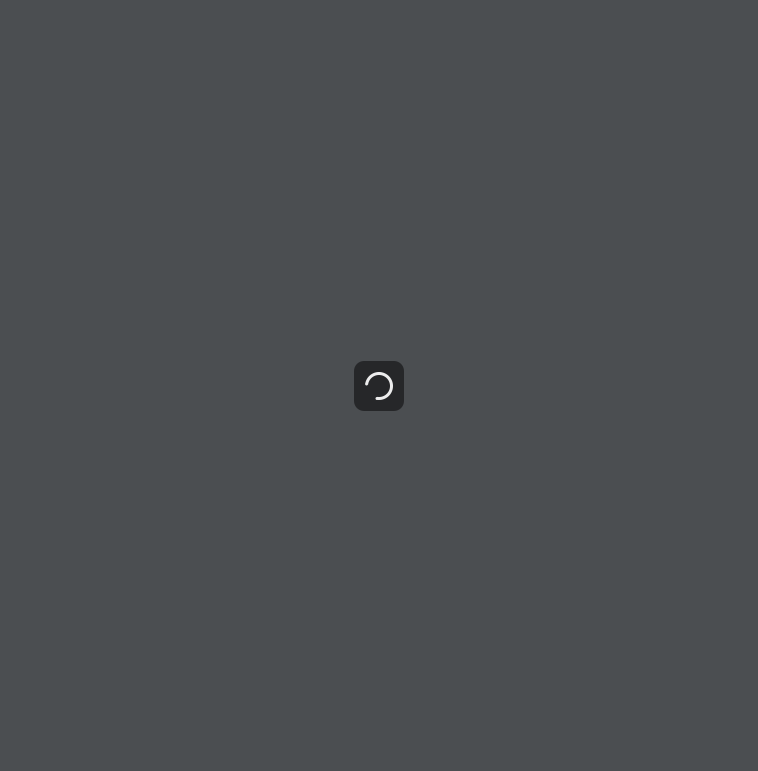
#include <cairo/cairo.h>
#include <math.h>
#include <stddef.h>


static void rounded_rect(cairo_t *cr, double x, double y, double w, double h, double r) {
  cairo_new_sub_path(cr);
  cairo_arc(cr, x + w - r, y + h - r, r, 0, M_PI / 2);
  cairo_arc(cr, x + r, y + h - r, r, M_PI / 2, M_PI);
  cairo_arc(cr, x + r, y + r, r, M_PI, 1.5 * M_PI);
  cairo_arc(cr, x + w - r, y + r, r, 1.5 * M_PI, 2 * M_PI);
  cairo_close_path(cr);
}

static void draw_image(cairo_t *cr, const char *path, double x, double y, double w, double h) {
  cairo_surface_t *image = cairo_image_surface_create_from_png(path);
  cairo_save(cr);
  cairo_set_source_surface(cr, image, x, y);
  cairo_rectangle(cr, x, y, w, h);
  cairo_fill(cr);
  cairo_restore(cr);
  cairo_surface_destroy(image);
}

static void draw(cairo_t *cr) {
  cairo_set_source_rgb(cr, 75 / 255.0, 78 / 255.0, 81 / 255.0);
  cairo_paint(cr);
  cairo_set_source_rgb(cr, 38 / 255.0, 39 / 255.0, 41 / 255.0);
  rounded_rect(cr, 354, 361, 50, 50, 10);
  cairo_fill(cr);
  draw_image(cr, "images/1.png", 365, 372, 28, 28);
}

int main(void) {
  cairo_surface_t *surface = cairo_image_surface_create(CAIRO_FORMAT_RGB24, 758, 771);
  cairo_t *cr = cairo_create(surface);
  cairo_font_options_t *options = cairo_font_options_create();
  cairo_font_options_set_hint_metrics(options, CAIRO_HINT_METRICS_OFF);
  cairo_font_options_set_hint_style(options, CAIRO_HINT_STYLE_NONE);
  cairo_set_font_options(cr, options);
  cairo_set_miter_limit(cr, 4);
  draw(cr);
  cairo_surface_write_to_png(surface, "out.png");
  cairo_font_options_destroy(options);
  cairo_destroy(cr);
  cairo_surface_destroy(surface);
  return 0;
}
